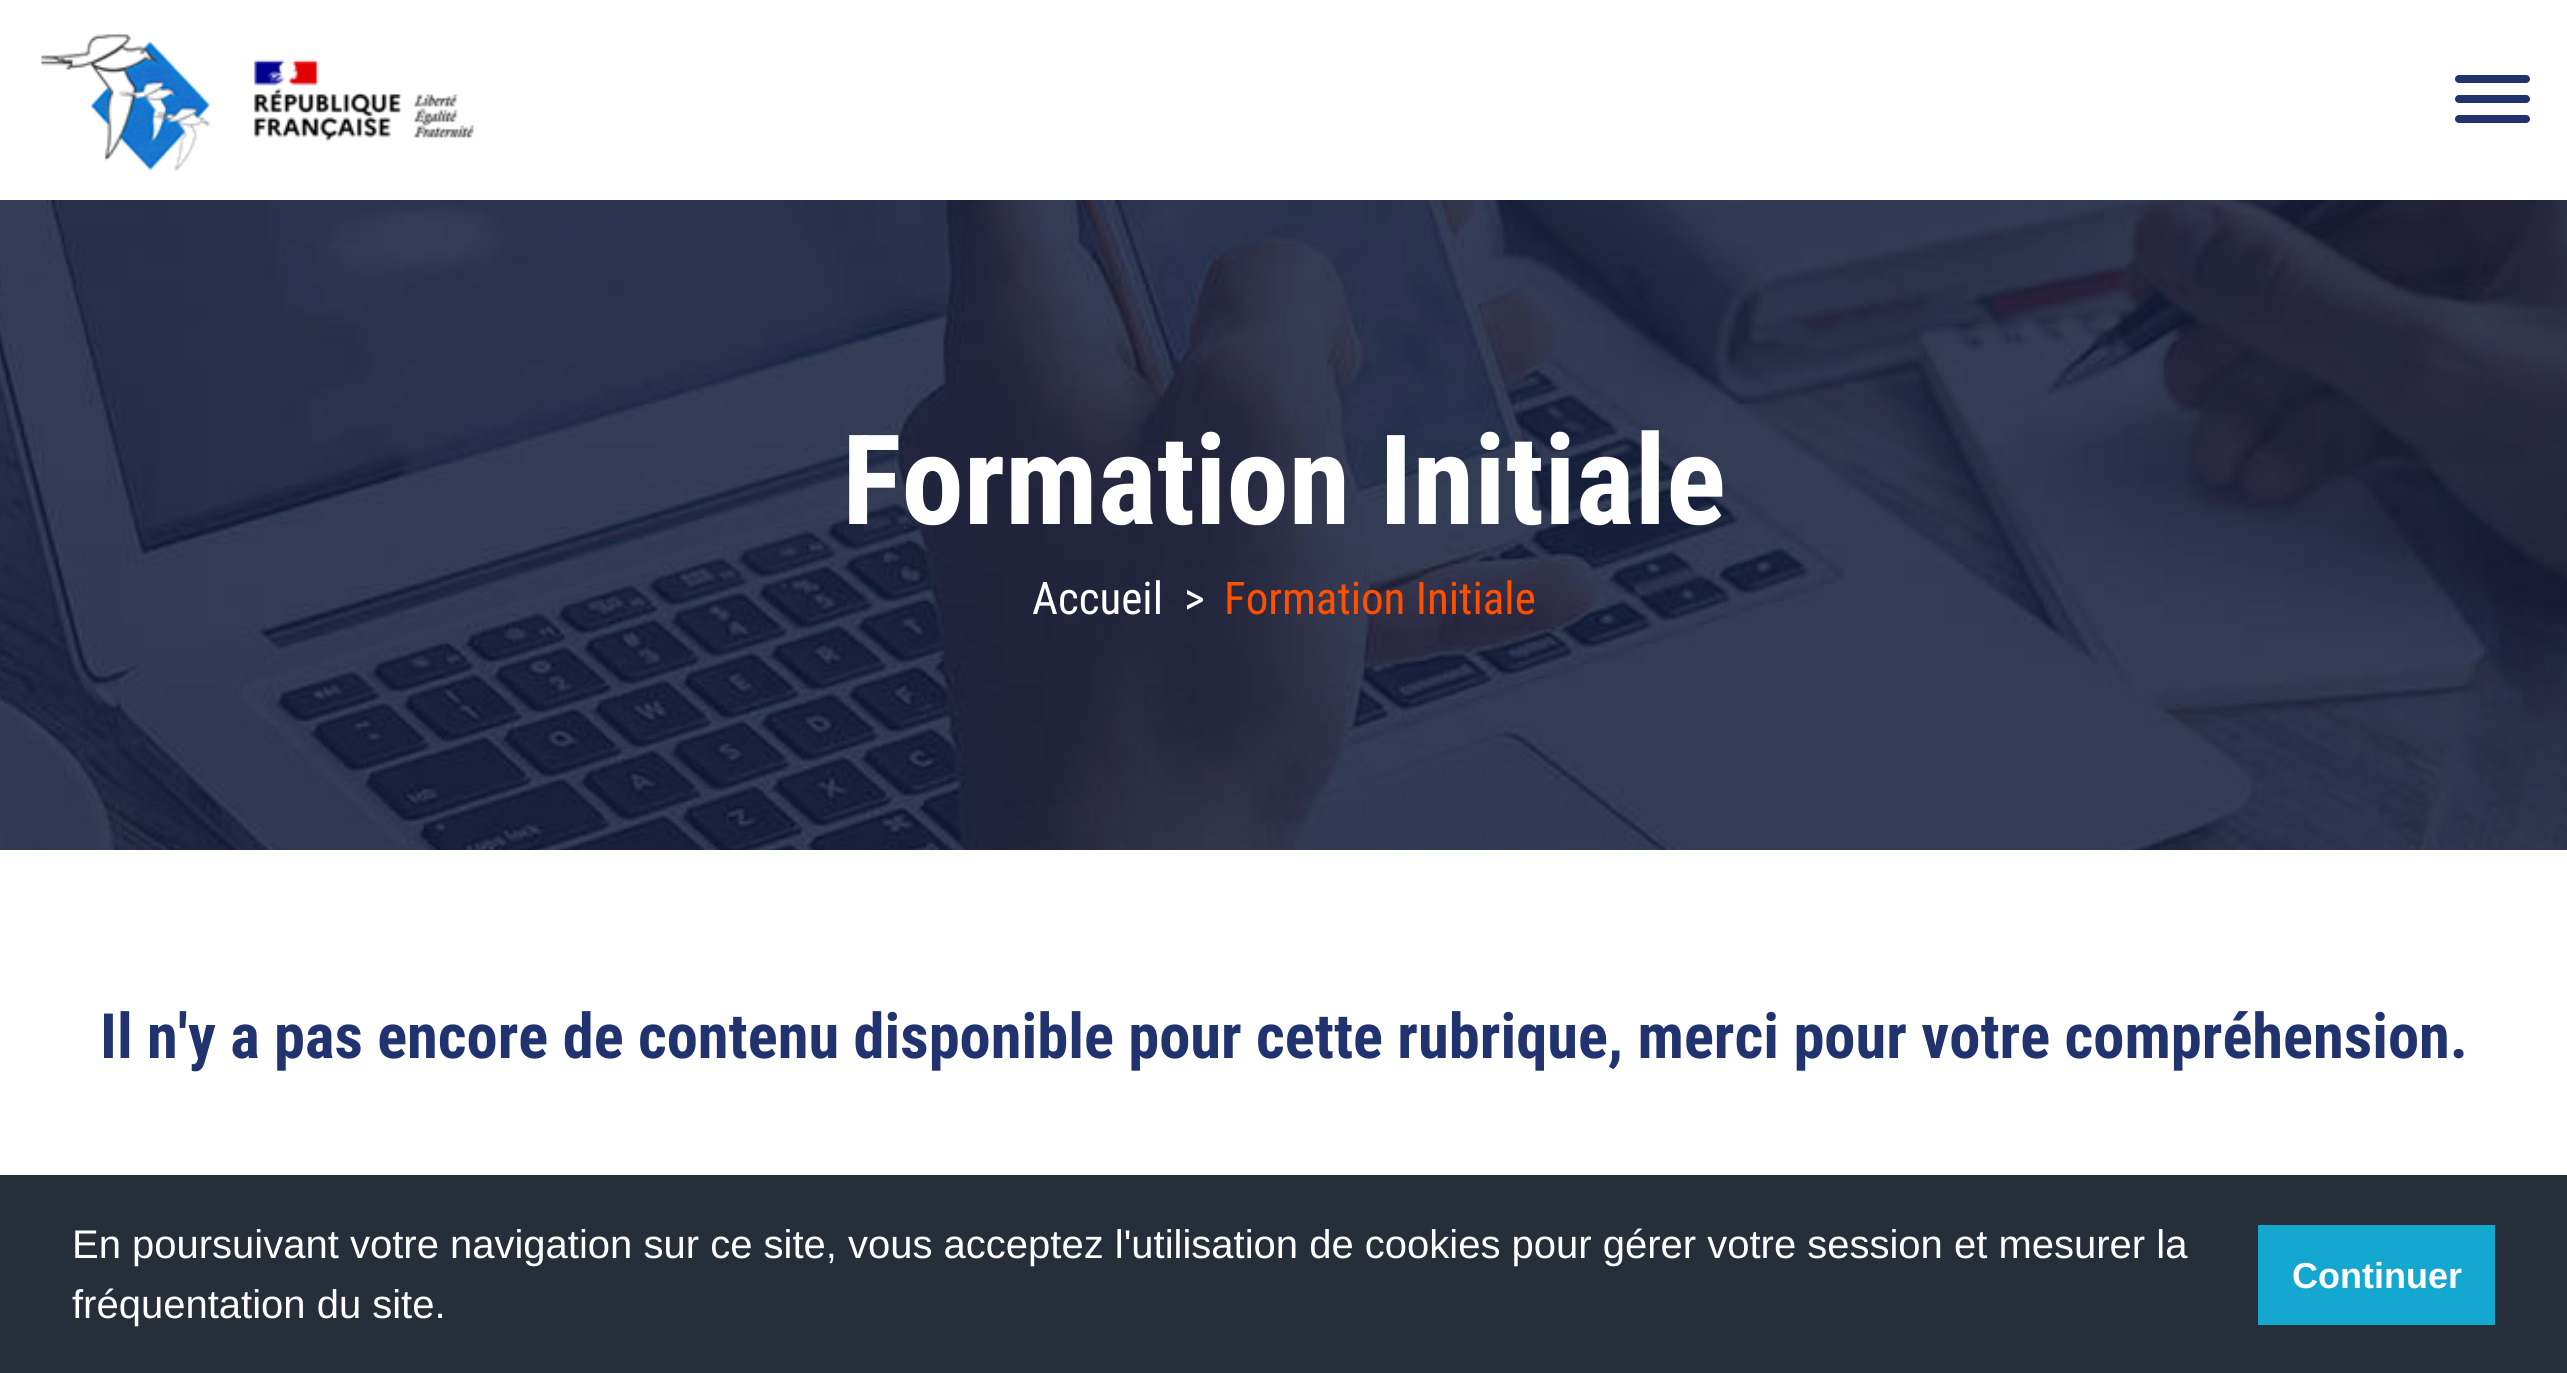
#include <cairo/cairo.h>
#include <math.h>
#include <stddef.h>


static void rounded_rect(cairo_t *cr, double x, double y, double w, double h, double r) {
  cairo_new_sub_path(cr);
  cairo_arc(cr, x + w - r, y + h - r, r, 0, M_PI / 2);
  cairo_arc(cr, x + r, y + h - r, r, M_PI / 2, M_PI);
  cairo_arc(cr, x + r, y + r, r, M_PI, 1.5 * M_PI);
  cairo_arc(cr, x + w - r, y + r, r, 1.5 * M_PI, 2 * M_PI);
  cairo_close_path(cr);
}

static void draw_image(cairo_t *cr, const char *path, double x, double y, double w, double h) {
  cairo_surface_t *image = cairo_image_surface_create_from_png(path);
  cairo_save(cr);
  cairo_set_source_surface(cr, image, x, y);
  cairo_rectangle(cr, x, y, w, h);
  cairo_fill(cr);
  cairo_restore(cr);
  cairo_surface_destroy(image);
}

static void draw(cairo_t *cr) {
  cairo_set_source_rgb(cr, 1, 1, 1);
  cairo_paint(cr);
  draw_image(cr, "images/1.png", 41, 32, 434, 139);
  cairo_set_source_rgb(cr, 33 / 255.0, 51 / 255.0, 111 / 255.0);
  rounded_rect(cr, 2455, 95, 75, 8, 4);
  cairo_fill(cr);
  rounded_rect(cr, 2455, 75, 75, 8, 4);
  cairo_fill(cr);
  rounded_rect(cr, 2455, 115, 75, 8, 4);
  cairo_fill(cr);
  draw_image(cr, "images/2.png", 0, 200, 2567, 650);
  cairo_set_source_rgb(cr, 37 / 255.0, 46 / 255.0, 57 / 255.0);
  cairo_rectangle(cr, 0, 1175, 2567, 198);
  cairo_fill(cr);
  cairo_set_source_rgb(cr, 20 / 255.0, 167 / 255.0, 208 / 255.0);
  cairo_rectangle(cr, 2258, 1225, 237, 100);
  cairo_fill(cr);
  cairo_select_font_face(cr, "Roboto Condensed", CAIRO_FONT_SLANT_NORMAL, CAIRO_FONT_WEIGHT_BOLD);
  cairo_set_font_size(cr, 125);
  cairo_set_source_rgb(cr, 1, 1, 1);
  cairo_move_to(cr, 842, 524);
  cairo_show_text(cr, "Formation Initiale");
  cairo_select_font_face(cr, "Roboto Condensed", CAIRO_FONT_SLANT_NORMAL, CAIRO_FONT_WEIGHT_NORMAL);
  cairo_set_font_size(cr, 45);
  cairo_move_to(cr, 1032, 614);
  cairo_show_text(cr, "Accueil");
  cairo_move_to(cr, 1184, 614);
  cairo_show_text(cr, ">");
  cairo_set_source_rgb(cr, 1, 79 / 255.0, 1 / 255.0);
  cairo_move_to(cr, 1224, 614);
  cairo_show_text(cr, "Formation Initiale");
  cairo_select_font_face(cr, "Roboto Condensed", CAIRO_FONT_SLANT_NORMAL, CAIRO_FONT_WEIGHT_BOLD);
  cairo_set_font_size(cr, 62.5);
  cairo_set_source_rgb(cr, 33 / 255.0, 51 / 255.0, 111 / 255.0);
  cairo_move_to(cr, 100, 1058);
  cairo_show_text(cr, "Il n'y a pas encore de contenu disponible pour cette rubrique, merci pour votre compréhension.");
  cairo_select_font_face(cr, "Liberation Sans", CAIRO_FONT_SLANT_NORMAL, CAIRO_FONT_WEIGHT_NORMAL);
  cairo_set_font_size(cr, 40);
  cairo_set_source_rgb(cr, 1, 1, 1);
  cairo_move_to(cr, 72, 1258);
  cairo_show_text(cr, "En poursuivant votre navigation sur ce site, vous acceptez l'utilisation de cookies pour gérer votre session et mesurer la");
  cairo_move_to(cr, 72, 1318);
  cairo_show_text(cr, "fréquentation du site.");
  cairo_select_font_face(cr, "Liberation Sans", CAIRO_FONT_SLANT_NORMAL, CAIRO_FONT_WEIGHT_BOLD);
  cairo_set_font_size(cr, 36);
  cairo_move_to(cr, 2292, 1288);
  cairo_show_text(cr, "Continuer");
}

int main(void) {
  cairo_surface_t *surface = cairo_image_surface_create(CAIRO_FORMAT_RGB24, 2567, 1373);
  cairo_t *cr = cairo_create(surface);
  cairo_font_options_t *options = cairo_font_options_create();
  cairo_font_options_set_hint_metrics(options, CAIRO_HINT_METRICS_OFF);
  cairo_font_options_set_hint_style(options, CAIRO_HINT_STYLE_NONE);
  cairo_set_font_options(cr, options);
  cairo_set_miter_limit(cr, 4);
  draw(cr);
  cairo_surface_write_to_png(surface, "out.png");
  cairo_font_options_destroy(options);
  cairo_destroy(cr);
  cairo_surface_destroy(surface);
  return 0;
}
